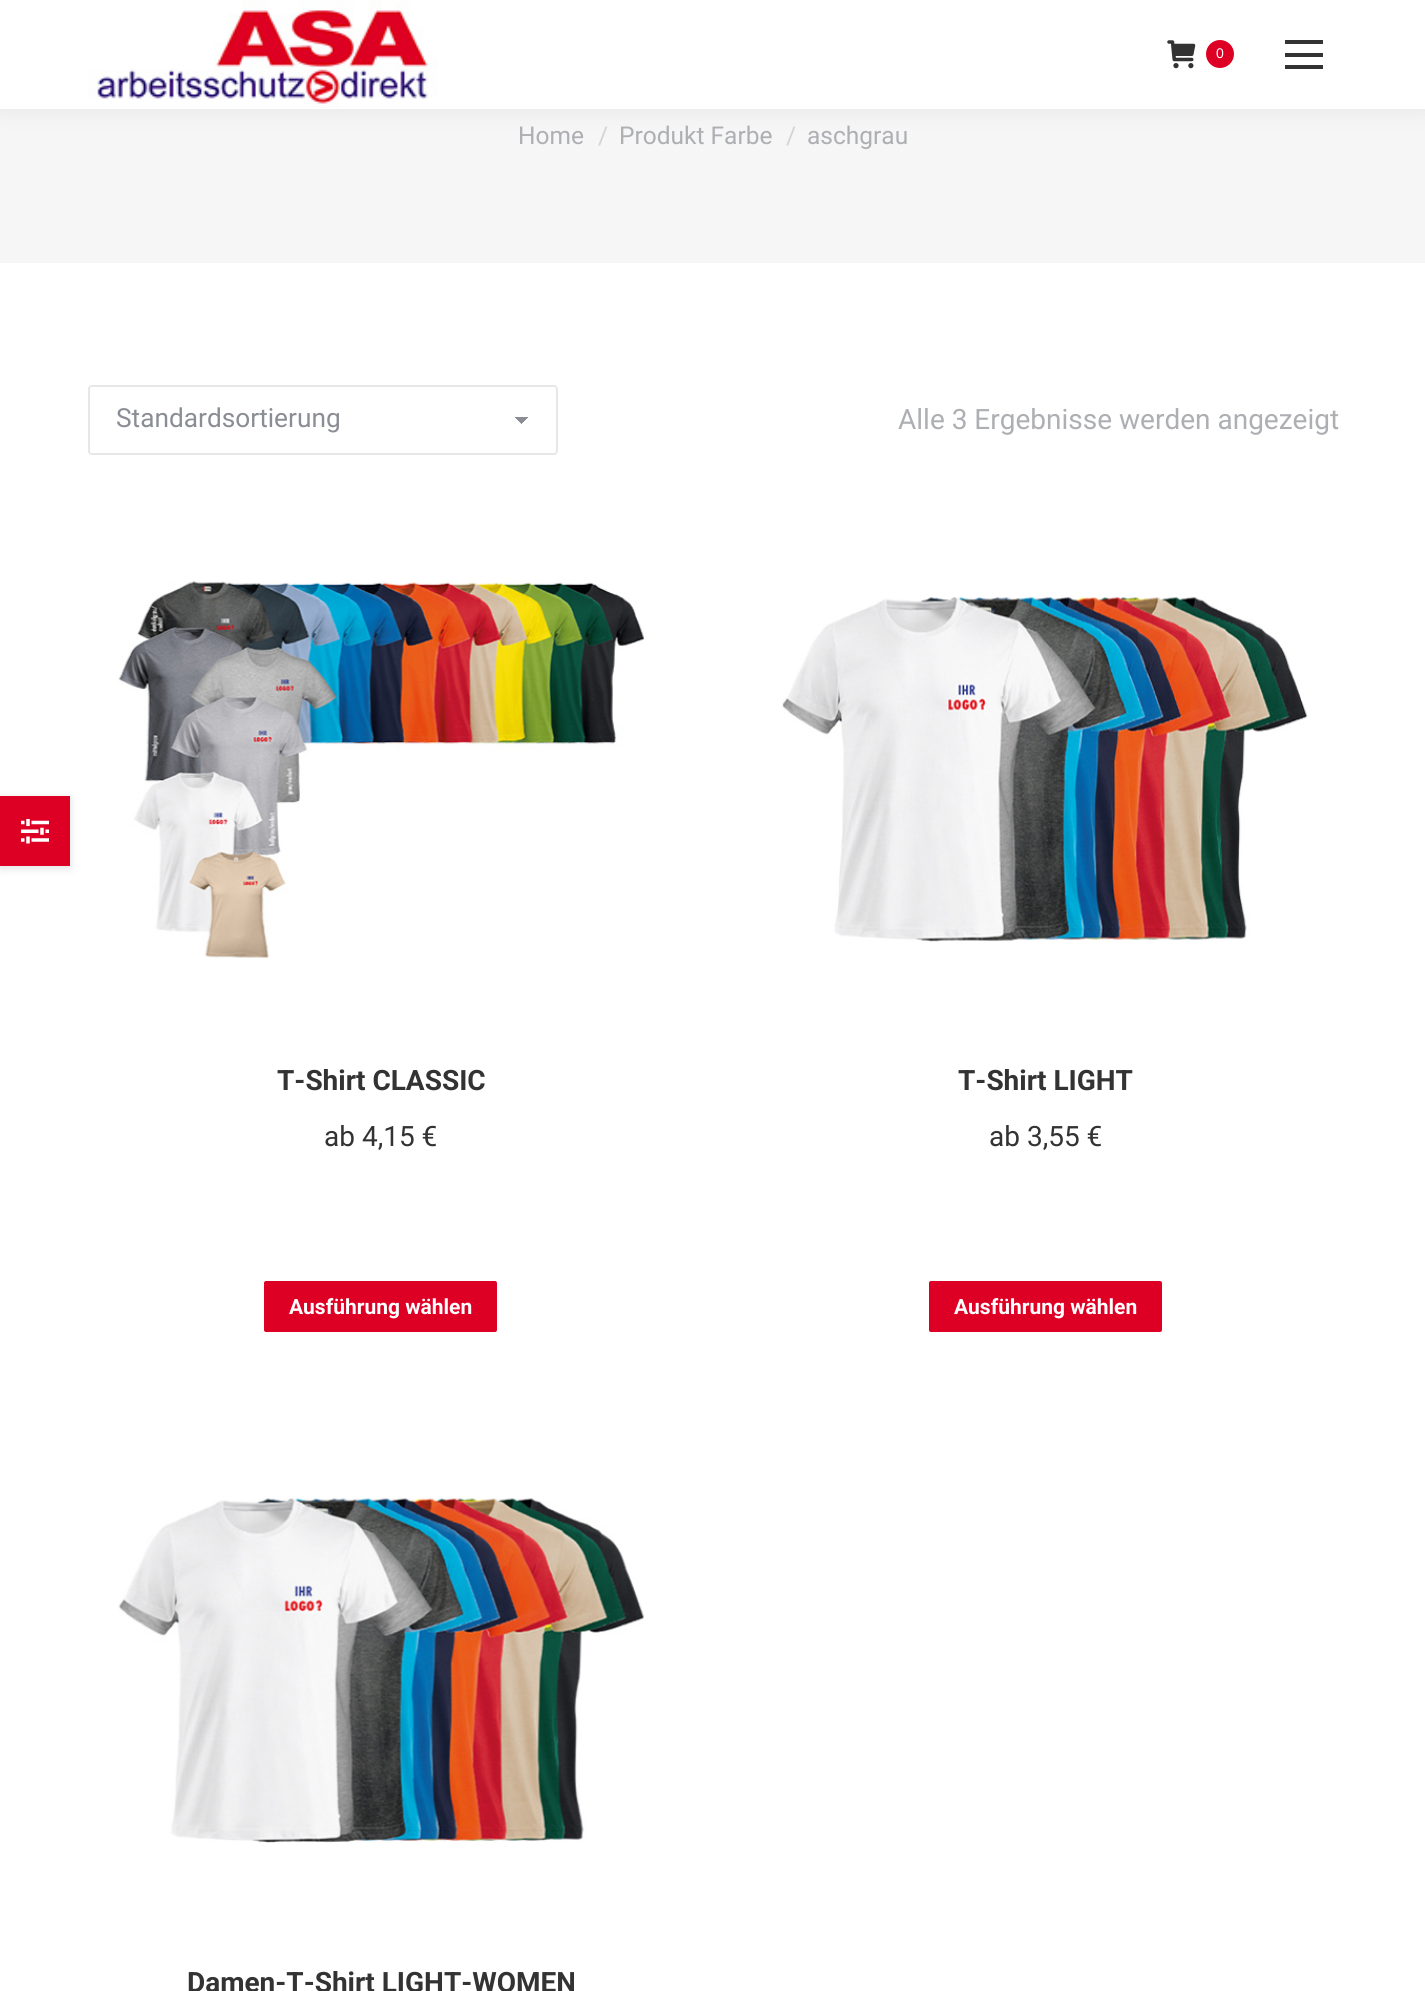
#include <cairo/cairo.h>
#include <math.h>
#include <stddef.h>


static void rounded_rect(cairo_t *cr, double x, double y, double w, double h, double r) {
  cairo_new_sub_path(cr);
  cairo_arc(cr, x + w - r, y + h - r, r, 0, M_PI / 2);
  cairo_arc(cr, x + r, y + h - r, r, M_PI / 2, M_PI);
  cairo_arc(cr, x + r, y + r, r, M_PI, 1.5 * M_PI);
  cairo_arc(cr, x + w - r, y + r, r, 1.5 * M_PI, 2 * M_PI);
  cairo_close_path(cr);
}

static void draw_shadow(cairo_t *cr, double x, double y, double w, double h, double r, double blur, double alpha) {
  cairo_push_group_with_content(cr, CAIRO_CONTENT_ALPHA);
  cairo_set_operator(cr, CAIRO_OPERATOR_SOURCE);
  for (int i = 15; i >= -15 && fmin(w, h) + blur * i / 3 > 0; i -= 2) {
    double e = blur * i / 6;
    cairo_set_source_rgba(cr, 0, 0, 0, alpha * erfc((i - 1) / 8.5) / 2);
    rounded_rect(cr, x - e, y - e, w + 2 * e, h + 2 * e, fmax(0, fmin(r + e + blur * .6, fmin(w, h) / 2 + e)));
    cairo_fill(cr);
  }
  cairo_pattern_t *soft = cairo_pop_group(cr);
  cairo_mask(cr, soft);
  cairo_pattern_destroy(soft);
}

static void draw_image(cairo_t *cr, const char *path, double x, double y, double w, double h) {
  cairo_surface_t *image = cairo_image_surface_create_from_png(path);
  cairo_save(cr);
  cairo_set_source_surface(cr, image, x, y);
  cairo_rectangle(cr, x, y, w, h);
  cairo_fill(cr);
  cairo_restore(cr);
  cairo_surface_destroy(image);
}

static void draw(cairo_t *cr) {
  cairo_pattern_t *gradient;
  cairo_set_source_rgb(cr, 1, 1, 1);
  cairo_paint(cr);
  cairo_set_source_rgb(cr, 246 / 255.0, 246 / 255.0, 246 / 255.0);
  cairo_rectangle(cr, 0, 109, 1425, 154);
  cairo_fill(cr);
  cairo_set_source_rgb(cr, 0, 0, 0);
  draw_shadow(cr, -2, -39, 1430, 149, 0, 13, 0.07);
  cairo_set_source_rgb(cr, 1, 1, 1);
  cairo_rectangle(cr, 0, 0, 1425, 109);
  cairo_fill(cr);
  draw_image(cr, "images/1.png", 88, 0, 350, 108);
  draw_image(cr, "images/2.png", 1167, 40, 29, 29);
  cairo_set_source_rgb(cr, 222 / 255.0, 0, 36 / 255.0);
  cairo_arc(cr, 1220, 54, 14, 0, 2 * M_PI);
  cairo_fill(cr);
  cairo_set_source_rgb(cr, 51 / 255.0, 51 / 255.0, 51 / 255.0);
  cairo_rectangle(cr, 1285, 40, 38, 4);
  cairo_fill(cr);
  cairo_rectangle(cr, 1285, 53, 38, 4);
  cairo_fill(cr);
  cairo_rectangle(cr, 1285, 65, 38, 4);
  cairo_fill(cr);
  cairo_set_source_rgb(cr, 0, 0, 0);
  draw_shadow(cr, 0, 798, 70, 70, 0, 5, 0.12);
  cairo_set_source_rgb(cr, 222 / 255.0, 0, 36 / 255.0);
  cairo_rectangle(cr, 0, 796, 70, 70);
  cairo_fill(cr);
  draw_image(cr, "images/3.png", 21, 819, 28, 25);
  gradient = cairo_pattern_create_linear(522, 416, 530, 424);
  cairo_pattern_add_color_stop_rgba(gradient, 0.5, 139 / 255.0, 141 / 255.0, 148 / 255.0, 1);
  cairo_pattern_add_color_stop_rgba(gradient, 0.5, 253 / 255.0, 253 / 255.0, 253 / 255.0, 1);
  cairo_set_source(cr, gradient);
  cairo_pattern_destroy(gradient);
  cairo_rectangle(cr, 522, 417, 8, 6);
  cairo_fill(cr);
  gradient = cairo_pattern_create_linear(513, 424, 522, 416);
  cairo_pattern_add_color_stop_rgba(gradient, 0.5, 253 / 255.0, 253 / 255.0, 253 / 255.0, 1);
  cairo_pattern_add_color_stop_rgba(gradient, 0.5, 139 / 255.0, 141 / 255.0, 148 / 255.0, 1);
  cairo_set_source(cr, gradient);
  cairo_pattern_destroy(gradient);
  cairo_rectangle(cr, 513, 417, 9, 7);
  cairo_fill(cr);
  rounded_rect(cr, 89, 386, 468, 68, 3);
  cairo_set_source_rgb(cr, 231 / 255.0, 231 / 255.0, 231 / 255.0);
  cairo_stroke(cr);
  draw_image(cr, "images/4.png", 118, 581, 526, 377);
  cairo_set_source_rgb(cr, 222 / 255.0, 0, 36 / 255.0);
  rounded_rect(cr, 264, 1281, 233, 51, 2);
  cairo_fill(cr);
  draw_image(cr, "images/5.png", 782, 597, 526, 345);
  rounded_rect(cr, 929, 1281, 233, 51, 2);
  cairo_fill(cr);
  draw_image(cr, "images/6.png", 118, 1498, 526, 345);
  cairo_select_font_face(cr, "Liberation Sans", CAIRO_FONT_SLANT_NORMAL, CAIRO_FONT_WEIGHT_NORMAL);
  cairo_set_font_size(cr, 14);
  cairo_set_source_rgb(cr, 1, 1, 1);
  cairo_move_to(cr, 1216, 58);
  cairo_show_text(cr, "0");
  cairo_select_font_face(cr, "Roboto", CAIRO_FONT_SLANT_NORMAL, CAIRO_FONT_WEIGHT_NORMAL);
  cairo_set_font_size(cr, 24.5);
  cairo_set_source_rgb(cr, 173 / 255.0, 175 / 255.0, 179 / 255.0);
  cairo_move_to(cr, 518, 144);
  cairo_show_text(cr, "Home");
  cairo_set_source_rgb(cr, 210 / 255.0, 211 / 255.0, 213 / 255.0);
  cairo_move_to(cr, 598, 144);
  cairo_show_text(cr, "/");
  cairo_set_source_rgb(cr, 173 / 255.0, 175 / 255.0, 179 / 255.0);
  cairo_move_to(cr, 619, 144);
  cairo_show_text(cr, "Produkt Farbe");
  cairo_set_source_rgb(cr, 210 / 255.0, 211 / 255.0, 213 / 255.0);
  cairo_move_to(cr, 786, 144);
  cairo_show_text(cr, "/");
  cairo_set_source_rgb(cr, 173 / 255.0, 175 / 255.0, 179 / 255.0);
  cairo_move_to(cr, 807, 144);
  cairo_show_text(cr, "aschgrau");
  cairo_set_font_size(cr, 26.25);
  cairo_set_source_rgb(cr, 139 / 255.0, 141 / 255.0, 148 / 255.0);
  cairo_move_to(cr, 116, 427);
  cairo_show_text(cr, "Standardsortierung");
  cairo_set_font_size(cr, 28);
  cairo_set_source_rgb(cr, 173 / 255.0, 175 / 255.0, 179 / 255.0);
  cairo_move_to(cr, 898, 429);
  cairo_show_text(cr, "Alle 3 Ergebnisse werden angezeigt");
  cairo_select_font_face(cr, "Roboto", CAIRO_FONT_SLANT_NORMAL, CAIRO_FONT_WEIGHT_BOLD);
  cairo_set_source_rgb(cr, 51 / 255.0, 51 / 255.0, 51 / 255.0);
  cairo_move_to(cr, 277, 1090);
  cairo_show_text(cr, "T-Shirt CLASSIC");
  cairo_select_font_face(cr, "Roboto", CAIRO_FONT_SLANT_NORMAL, CAIRO_FONT_WEIGHT_NORMAL);
  cairo_move_to(cr, 324, 1146);
  cairo_show_text(cr, "ab 4,15 €");
  cairo_select_font_face(cr, "Roboto", CAIRO_FONT_SLANT_NORMAL, CAIRO_FONT_WEIGHT_BOLD);
  cairo_set_font_size(cr, 21);
  cairo_set_source_rgb(cr, 1, 1, 1);
  cairo_move_to(cr, 289, 1314);
  cairo_show_text(cr, "Ausführung wählen");
  cairo_set_font_size(cr, 28);
  cairo_set_source_rgb(cr, 51 / 255.0, 51 / 255.0, 51 / 255.0);
  cairo_move_to(cr, 958, 1090);
  cairo_show_text(cr, "T-Shirt LIGHT");
  cairo_select_font_face(cr, "Roboto", CAIRO_FONT_SLANT_NORMAL, CAIRO_FONT_WEIGHT_NORMAL);
  cairo_move_to(cr, 989, 1146);
  cairo_show_text(cr, "ab 3,55 €");
  cairo_select_font_face(cr, "Roboto", CAIRO_FONT_SLANT_NORMAL, CAIRO_FONT_WEIGHT_BOLD);
  cairo_set_font_size(cr, 21);
  cairo_set_source_rgb(cr, 1, 1, 1);
  cairo_move_to(cr, 954, 1314);
  cairo_show_text(cr, "Ausführung wählen");
  cairo_set_font_size(cr, 28);
  cairo_set_source_rgb(cr, 51 / 255.0, 51 / 255.0, 51 / 255.0);
  cairo_move_to(cr, 187, 1992);
  cairo_show_text(cr, "Damen-T-Shirt LIGHT-WOMEN");
}

int main(void) {
  cairo_surface_t *surface = cairo_image_surface_create(CAIRO_FORMAT_RGB24, 1425, 1991);
  cairo_t *cr = cairo_create(surface);
  cairo_font_options_t *options = cairo_font_options_create();
  cairo_font_options_set_hint_metrics(options, CAIRO_HINT_METRICS_OFF);
  cairo_font_options_set_hint_style(options, CAIRO_HINT_STYLE_NONE);
  cairo_set_font_options(cr, options);
  cairo_set_miter_limit(cr, 4);
  draw(cr);
  cairo_surface_write_to_png(surface, "out.png");
  cairo_font_options_destroy(options);
  cairo_destroy(cr);
  cairo_surface_destroy(surface);
  return 0;
}
